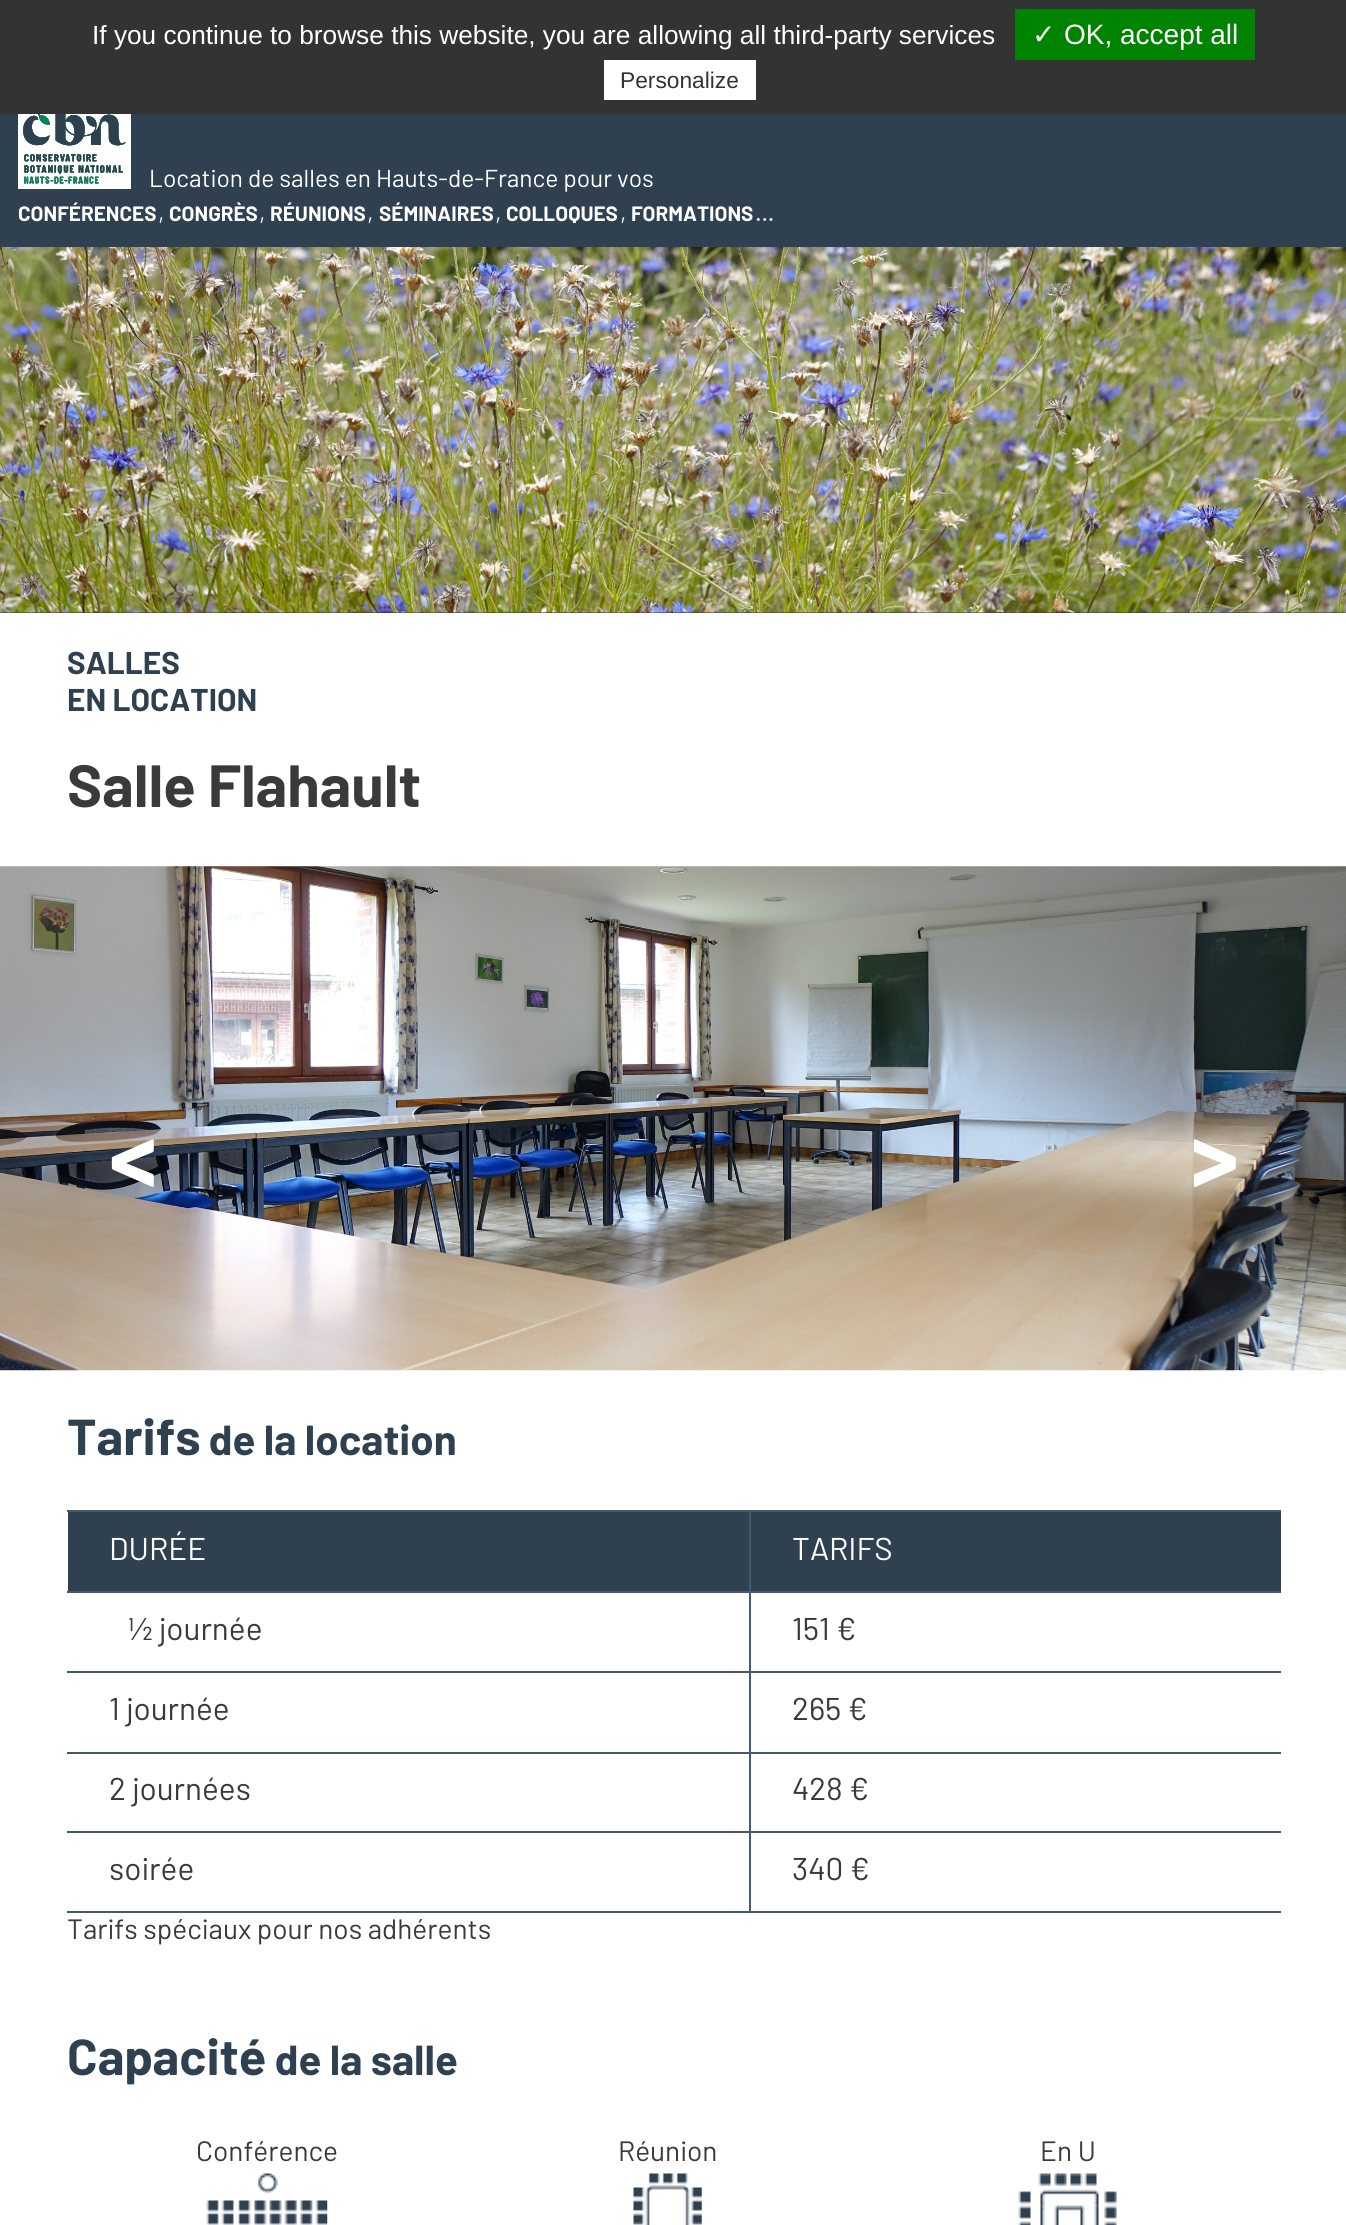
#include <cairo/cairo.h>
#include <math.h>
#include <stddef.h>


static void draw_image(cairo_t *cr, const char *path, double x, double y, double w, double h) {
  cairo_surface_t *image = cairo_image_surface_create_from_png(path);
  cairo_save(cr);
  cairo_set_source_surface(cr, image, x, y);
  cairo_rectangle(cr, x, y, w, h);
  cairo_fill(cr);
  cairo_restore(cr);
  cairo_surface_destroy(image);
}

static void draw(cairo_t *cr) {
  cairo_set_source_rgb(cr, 1, 1, 1);
  cairo_paint(cr);
  cairo_set_source_rgb(cr, 51 / 255.0, 51 / 255.0, 51 / 255.0);
  cairo_rectangle(cr, 0, 0, 1346, 114);
  cairo_fill(cr);
  cairo_set_source_rgb(cr, 0, 131 / 255.0, 0);
  cairo_rectangle(cr, 1015, 9, 240, 51);
  cairo_fill(cr);
  cairo_set_source_rgb(cr, 1, 1, 1);
  cairo_rectangle(cr, 604, 60, 152, 40);
  cairo_fill(cr);
  cairo_set_source_rgb(cr, 47 / 255.0, 65 / 255.0, 81 / 255.0);
  cairo_rectangle(cr, 0, 612, 1346, 1);
  cairo_fill(cr);
  draw_image(cr, "images/1.png", 0, 247, 1346, 366);
  cairo_rectangle(cr, 0, 114, 1346, 133);
  cairo_fill(cr);
  cairo_set_source_rgb(cr, 1, 1, 1);
  cairo_rectangle(cr, 18, 114, 113, 75);
  cairo_fill(cr);
  draw_image(cr, "images/2.png", 23, 114, 103, 70);
  draw_image(cr, "images/3.png", 0, 866, 1346, 505);
  cairo_set_source_rgb(cr, 47 / 255.0, 65 / 255.0, 81 / 255.0);
  cairo_rectangle(cr, 68, 1512, 1213, 79);
  cairo_fill(cr);
  cairo_set_source_rgb(cr, 66 / 255.0, 91 / 255.0, 113 / 255.0);
  cairo_rectangle(cr, 749, 1510, 532, 2);
  cairo_fill(cr);
  cairo_rectangle(cr, 749, 1591, 532, 2);
  cairo_fill(cr);
  cairo_rectangle(cr, 749, 1671, 532, 2);
  cairo_fill(cr);
  cairo_rectangle(cr, 749, 1752, 532, 2);
  cairo_fill(cr);
  cairo_rectangle(cr, 749, 1831, 532, 2);
  cairo_fill(cr);
  cairo_rectangle(cr, 749, 1911, 532, 2);
  cairo_fill(cr);
  cairo_rectangle(cr, 749, 1831, 2, 82);
  cairo_fill(cr);
  cairo_rectangle(cr, 67, 1831, 684, 2);
  cairo_fill(cr);
  cairo_rectangle(cr, 749, 1752, 2, 80);
  cairo_fill(cr);
  cairo_rectangle(cr, 67, 1752, 684, 2);
  cairo_fill(cr);
  cairo_rectangle(cr, 749, 1671, 2, 83);
  cairo_fill(cr);
  cairo_rectangle(cr, 67, 1671, 684, 2);
  cairo_fill(cr);
  cairo_rectangle(cr, 749, 1591, 2, 82);
  cairo_fill(cr);
  cairo_rectangle(cr, 67, 1591, 684, 2);
  cairo_fill(cr);
  cairo_rectangle(cr, 749, 1510, 2, 83);
  cairo_fill(cr);
  cairo_rectangle(cr, 67, 1510, 684, 2);
  cairo_fill(cr);
  cairo_rectangle(cr, 67, 1911, 684, 2);
  cairo_fill(cr);
  draw_image(cr, "images/4.png", 206, 2173, 122, 52);
  draw_image(cr, "images/5.png", 633, 2173, 69, 52);
  draw_image(cr, "images/6.png", 1018, 2173, 99, 52);
  cairo_select_font_face(cr, "Liberation Sans", CAIRO_FONT_SLANT_NORMAL, CAIRO_FONT_WEIGHT_NORMAL);
  cairo_set_font_size(cr, 26.25);
  cairo_set_source_rgb(cr, 1, 1, 1);
  cairo_move_to(cr, 92, 44);
  cairo_show_text(cr, "If you continue to browse this website, you are allowing all third-party services");
  cairo_select_font_face(cr, "DejaVu Sans", CAIRO_FONT_SLANT_NORMAL, CAIRO_FONT_WEIGHT_NORMAL);
  cairo_set_font_size(cr, 28);
  cairo_move_to(cr, 1032, 44);
  cairo_show_text(cr, "✓");
  cairo_select_font_face(cr, "Liberation Sans", CAIRO_FONT_SLANT_NORMAL, CAIRO_FONT_WEIGHT_NORMAL);
  cairo_move_to(cr, 1064, 44);
  cairo_show_text(cr, "OK, accept all");
  cairo_set_font_size(cr, 22.75);
  cairo_set_source_rgb(cr, 51 / 255.0, 51 / 255.0, 51 / 255.0);
  cairo_move_to(cr, 620, 88);
  cairo_show_text(cr, "Personalize");
  cairo_select_font_face(cr, "Barlow", CAIRO_FONT_SLANT_NORMAL, CAIRO_FONT_WEIGHT_NORMAL);
  cairo_set_font_size(cr, 24.5);
  cairo_set_source_rgb(cr, 1, 1, 1);
  cairo_move_to(cr, 149, 187);
  cairo_show_text(cr, "Location de salles en Hauts-de-France pour vos");
  cairo_select_font_face(cr, "Barlow", CAIRO_FONT_SLANT_NORMAL, CAIRO_FONT_WEIGHT_BOLD);
  cairo_set_font_size(cr, 20.75);
  cairo_move_to(cr, 18, 221);
  cairo_show_text(cr, "CONFÉRENCES");
  cairo_select_font_face(cr, "Barlow", CAIRO_FONT_SLANT_NORMAL, CAIRO_FONT_WEIGHT_NORMAL);
  cairo_set_font_size(cr, 24.5);
  cairo_move_to(cr, 158, 221);
  cairo_show_text(cr, ",");
  cairo_select_font_face(cr, "Barlow", CAIRO_FONT_SLANT_NORMAL, CAIRO_FONT_WEIGHT_BOLD);
  cairo_set_font_size(cr, 20.75);
  cairo_move_to(cr, 169, 221);
  cairo_show_text(cr, "CONGRÈS");
  cairo_select_font_face(cr, "Barlow", CAIRO_FONT_SLANT_NORMAL, CAIRO_FONT_WEIGHT_NORMAL);
  cairo_set_font_size(cr, 24.5);
  cairo_move_to(cr, 259, 221);
  cairo_show_text(cr, ",");
  cairo_select_font_face(cr, "Barlow", CAIRO_FONT_SLANT_NORMAL, CAIRO_FONT_WEIGHT_BOLD);
  cairo_set_font_size(cr, 20.75);
  cairo_move_to(cr, 270, 221);
  cairo_show_text(cr, "RÉUNIONS");
  cairo_select_font_face(cr, "Barlow", CAIRO_FONT_SLANT_NORMAL, CAIRO_FONT_WEIGHT_NORMAL);
  cairo_set_font_size(cr, 24.5);
  cairo_move_to(cr, 367, 221);
  cairo_show_text(cr, ",");
  cairo_select_font_face(cr, "Barlow", CAIRO_FONT_SLANT_NORMAL, CAIRO_FONT_WEIGHT_BOLD);
  cairo_set_font_size(cr, 20.75);
  cairo_move_to(cr, 379, 221);
  cairo_show_text(cr, "SÉMINAIRES");
  cairo_select_font_face(cr, "Barlow", CAIRO_FONT_SLANT_NORMAL, CAIRO_FONT_WEIGHT_NORMAL);
  cairo_set_font_size(cr, 24.5);
  cairo_move_to(cr, 495, 221);
  cairo_show_text(cr, ",");
  cairo_select_font_face(cr, "Barlow", CAIRO_FONT_SLANT_NORMAL, CAIRO_FONT_WEIGHT_BOLD);
  cairo_set_font_size(cr, 20.75);
  cairo_move_to(cr, 506, 221);
  cairo_show_text(cr, "COLLOQUES");
  cairo_select_font_face(cr, "Barlow", CAIRO_FONT_SLANT_NORMAL, CAIRO_FONT_WEIGHT_NORMAL);
  cairo_set_font_size(cr, 24.5);
  cairo_move_to(cr, 620, 221);
  cairo_show_text(cr, ",");
  cairo_select_font_face(cr, "Barlow", CAIRO_FONT_SLANT_NORMAL, CAIRO_FONT_WEIGHT_BOLD);
  cairo_set_font_size(cr, 20.75);
  cairo_move_to(cr, 631, 221);
  cairo_show_text(cr, "FORMATIONS");
  cairo_select_font_face(cr, "Barlow", CAIRO_FONT_SLANT_NORMAL, CAIRO_FONT_WEIGHT_NORMAL);
  cairo_set_font_size(cr, 24.5);
  cairo_move_to(cr, 755, 221);
  cairo_show_text(cr, "…");
  cairo_select_font_face(cr, "Barlow", CAIRO_FONT_SLANT_NORMAL, CAIRO_FONT_WEIGHT_BOLD);
  cairo_set_font_size(cr, 31.5);
  cairo_set_source_rgb(cr, 47 / 255.0, 65 / 255.0, 81 / 255.0);
  cairo_move_to(cr, 67, 674);
  cairo_show_text(cr, "SALLES");
  cairo_move_to(cr, 67, 711);
  cairo_show_text(cr, "EN LOCATION");
  cairo_set_font_size(cr, 59.5);
  cairo_set_source_rgb(cr, 58 / 255.0, 58 / 255.0, 58 / 255.0);
  cairo_move_to(cr, 67, 807);
  cairo_show_text(cr, "Salle Flahault");
  cairo_set_font_size(cr, 98);
  cairo_set_source_rgb(cr, 1, 1, 1);
  cairo_move_to(cr, 109, 1190);
  cairo_show_text(cr, "<");
  cairo_move_to(cr, 1191, 1190);
  cairo_show_text(cr, ">");
  cairo_set_font_size(cr, 50.5);
  cairo_set_source_rgb(cr, 47 / 255.0, 65 / 255.0, 81 / 255.0);
  cairo_move_to(cr, 67, 1455);
  cairo_show_text(cr, "Tarifs");
  cairo_set_font_size(cr, 42);
  cairo_move_to(cr, 209, 1455);
  cairo_show_text(cr, "de la location");
  cairo_select_font_face(cr, "Barlow", CAIRO_FONT_SLANT_NORMAL, CAIRO_FONT_WEIGHT_NORMAL);
  cairo_set_font_size(cr, 31.5);
  cairo_set_source_rgb(cr, 1, 1, 1);
  cairo_move_to(cr, 109, 1560);
  cairo_show_text(cr, "DURÉE");
  cairo_move_to(cr, 792, 1560);
  cairo_show_text(cr, "TARIFS");
  cairo_set_source_rgb(cr, 58 / 255.0, 58 / 255.0, 58 / 255.0);
  cairo_move_to(cr, 128, 1640);
  cairo_show_text(cr, "½ journée");
  cairo_move_to(cr, 792, 1640);
  cairo_show_text(cr, "151 €");
  cairo_move_to(cr, 109, 1720);
  cairo_show_text(cr, "1 journée");
  cairo_move_to(cr, 792, 1720);
  cairo_show_text(cr, "265 €");
  cairo_move_to(cr, 109, 1800);
  cairo_show_text(cr, "2 journées");
  cairo_move_to(cr, 792, 1800);
  cairo_show_text(cr, "428 €");
  cairo_move_to(cr, 109, 1880);
  cairo_show_text(cr, "soirée");
  cairo_move_to(cr, 792, 1880);
  cairo_show_text(cr, "340 €");
  cairo_set_font_size(cr, 28);
  cairo_move_to(cr, 67, 1939);
  cairo_show_text(cr, "Tarifs spéciaux pour nos adhérents");
  cairo_select_font_face(cr, "Barlow", CAIRO_FONT_SLANT_NORMAL, CAIRO_FONT_WEIGHT_BOLD);
  cairo_set_font_size(cr, 50.5);
  cairo_set_source_rgb(cr, 47 / 255.0, 65 / 255.0, 81 / 255.0);
  cairo_move_to(cr, 67, 2075);
  cairo_show_text(cr, "Capacité");
  cairo_set_font_size(cr, 42);
  cairo_move_to(cr, 275, 2075);
  cairo_show_text(cr, "de la salle");
  cairo_select_font_face(cr, "Barlow", CAIRO_FONT_SLANT_NORMAL, CAIRO_FONT_WEIGHT_NORMAL);
  cairo_set_font_size(cr, 28);
  cairo_set_source_rgb(cr, 58 / 255.0, 58 / 255.0, 58 / 255.0);
  cairo_move_to(cr, 196, 2161);
  cairo_show_text(cr, "Conférence");
  cairo_move_to(cr, 618, 2161);
  cairo_show_text(cr, "Réunion");
  cairo_move_to(cr, 1040, 2161);
  cairo_show_text(cr, "En U");
}

int main(void) {
  cairo_surface_t *surface = cairo_image_surface_create(CAIRO_FORMAT_RGB24, 1346, 2225);
  cairo_t *cr = cairo_create(surface);
  cairo_font_options_t *options = cairo_font_options_create();
  cairo_font_options_set_hint_metrics(options, CAIRO_HINT_METRICS_OFF);
  cairo_font_options_set_hint_style(options, CAIRO_HINT_STYLE_NONE);
  cairo_set_font_options(cr, options);
  cairo_set_miter_limit(cr, 4);
  draw(cr);
  cairo_surface_write_to_png(surface, "out.png");
  cairo_font_options_destroy(options);
  cairo_destroy(cr);
  cairo_surface_destroy(surface);
  return 0;
}
